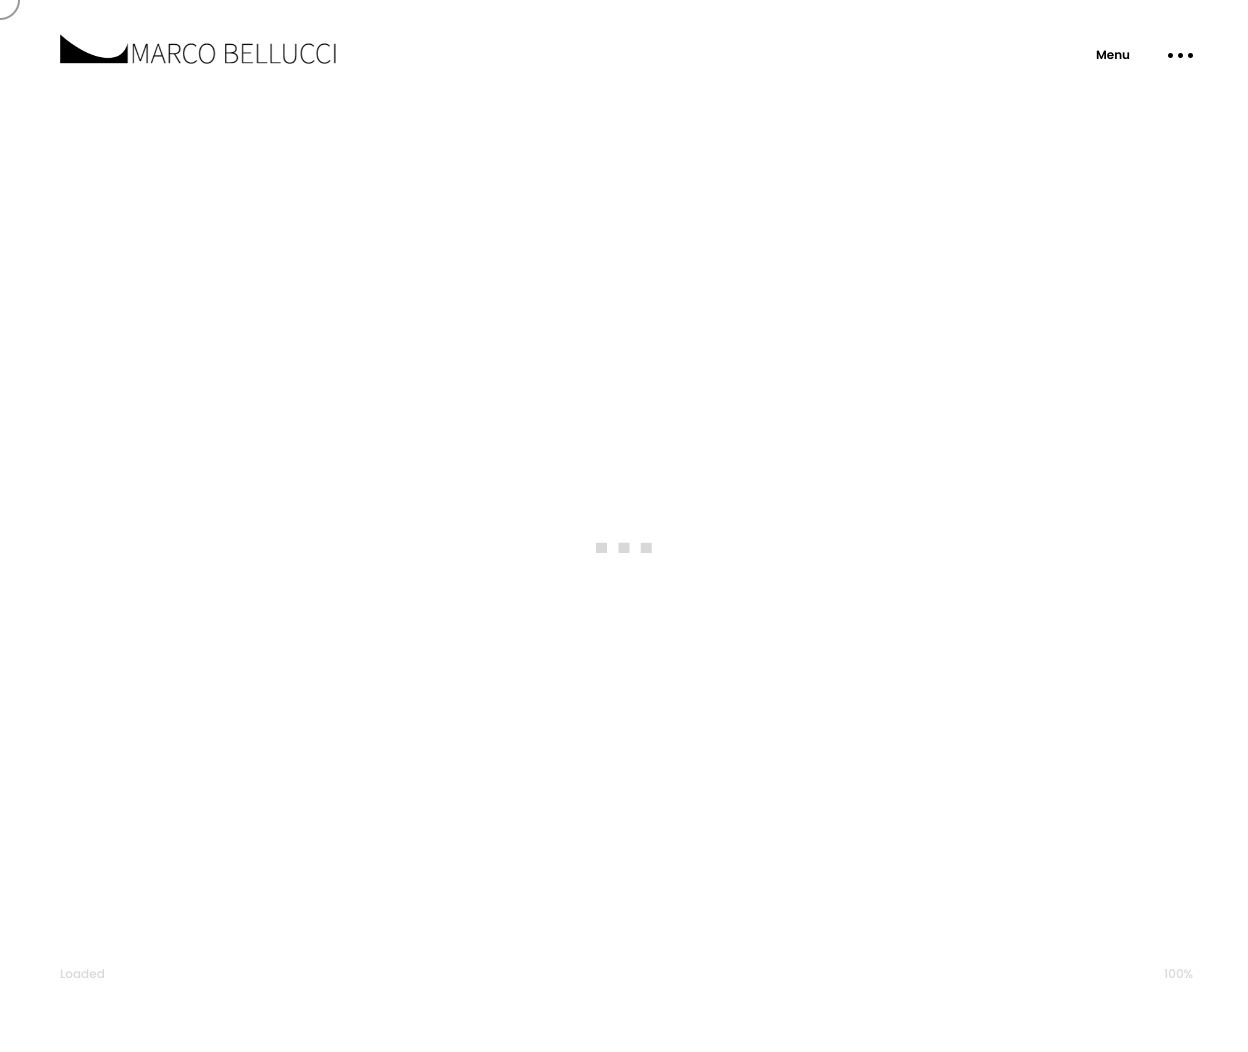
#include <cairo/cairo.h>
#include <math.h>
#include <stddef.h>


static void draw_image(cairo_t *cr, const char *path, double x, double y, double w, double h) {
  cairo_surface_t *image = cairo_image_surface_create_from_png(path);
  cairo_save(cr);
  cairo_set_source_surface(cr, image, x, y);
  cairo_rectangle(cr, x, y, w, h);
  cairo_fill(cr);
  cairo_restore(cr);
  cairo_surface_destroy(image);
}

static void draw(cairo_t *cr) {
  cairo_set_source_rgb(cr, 1, 1, 1);
  cairo_paint(cr);
  cairo_arc(cr, 0, 0, 19, 0, 2 * M_PI);
  cairo_set_source_rgb(cr, 153 / 255.0, 153 / 255.0, 153 / 255.0);
  cairo_stroke(cr);
  draw_image(cr, "images/1.png", 60, 34, 276, 30);
  cairo_set_source_rgb(cr, 0, 0, 0);
  cairo_arc(cr, 1170.5, 55.5, 2.5, 0, 2 * M_PI);
  cairo_fill(cr);
  cairo_arc(cr, 1180.5, 55.5, 2.5, 0, 2 * M_PI);
  cairo_fill(cr);
  cairo_arc(cr, 1190.5, 55.5, 2.5, 0, 2 * M_PI);
  cairo_fill(cr);
  cairo_select_font_face(cr, "Poppins SemiBold", CAIRO_FONT_SLANT_NORMAL, CAIRO_FONT_WEIGHT_NORMAL);
  cairo_set_font_size(cr, 12);
  cairo_move_to(cr, 1096, 59);
  cairo_show_text(cr, "Menu");
  cairo_select_font_face(cr, "Roboto Slab Medium", CAIRO_FONT_SLANT_NORMAL, CAIRO_FONT_WEIGHT_NORMAL);
  cairo_set_font_size(cr, 90);
  cairo_set_source_rgb(cr, 216 / 255.0, 216 / 255.0, 216 / 255.0);
  cairo_move_to(cr, 590, 553);
  cairo_show_text(cr, "...");
  cairo_select_font_face(cr, "Poppins Medium", CAIRO_FONT_SLANT_NORMAL, CAIRO_FONT_WEIGHT_NORMAL);
  cairo_set_font_size(cr, 12);
  cairo_move_to(cr, 60, 978);
  cairo_show_text(cr, "Loaded");
  cairo_move_to(cr, 1164, 978);
  cairo_show_text(cr, "100%");
}

int main(void) {
  cairo_surface_t *surface = cairo_image_surface_create(CAIRO_FORMAT_RGB24, 1248, 1052);
  cairo_t *cr = cairo_create(surface);
  cairo_font_options_t *options = cairo_font_options_create();
  cairo_font_options_set_hint_metrics(options, CAIRO_HINT_METRICS_OFF);
  cairo_font_options_set_hint_style(options, CAIRO_HINT_STYLE_NONE);
  cairo_set_font_options(cr, options);
  cairo_set_miter_limit(cr, 4);
  draw(cr);
  cairo_surface_write_to_png(surface, "out.png");
  cairo_font_options_destroy(options);
  cairo_destroy(cr);
  cairo_surface_destroy(surface);
  return 0;
}
